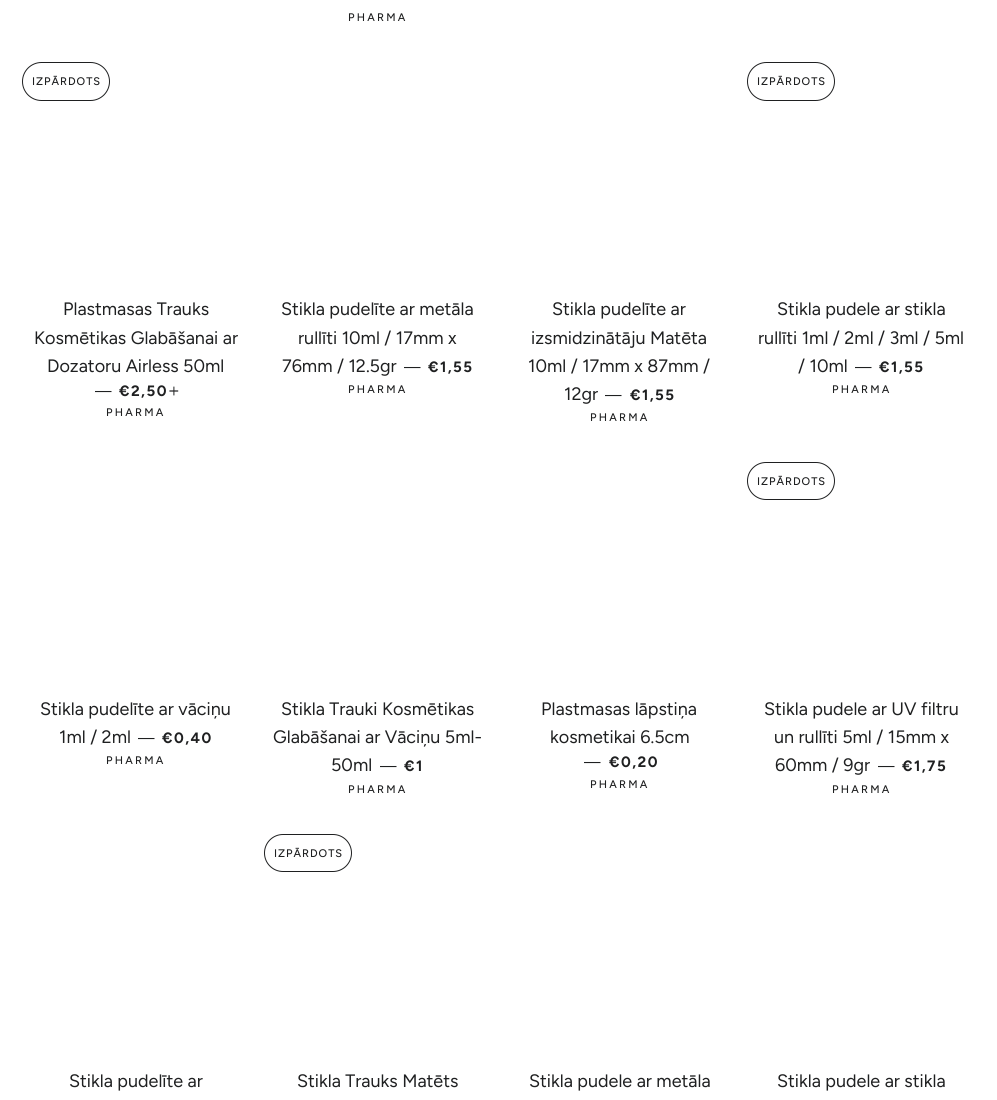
#include <cairo/cairo.h>
#include <math.h>
#include <stddef.h>


static void draw_spaced(cairo_t *cr, double x, double y, const char *s, double letter, double word) {
  cairo_move_to(cr, x, y);
  while (*s) {
    char ch[5] = {0};
    int n = 0;
    do ch[n++] = *s++; while ((*s & 0xC0) == 0x80);
    cairo_show_text(cr, ch);
    cairo_rel_move_to(cr, letter + word * (*ch == ' '), 0);
  }
}

static void rounded_rect(cairo_t *cr, double x, double y, double w, double h, double r) {
  cairo_new_sub_path(cr);
  cairo_arc(cr, x + w - r, y + h - r, r, 0, M_PI / 2);
  cairo_arc(cr, x + r, y + h - r, r, M_PI / 2, M_PI);
  cairo_arc(cr, x + r, y + r, r, M_PI, 1.5 * M_PI);
  cairo_arc(cr, x + w - r, y + r, r, 1.5 * M_PI, 2 * M_PI);
  cairo_close_path(cr);
}

static void draw_image(cairo_t *cr, const char *path, double x, double y, double w, double h) {
  cairo_surface_t *image = cairo_image_surface_create_from_png(path);
  cairo_save(cr);
  cairo_set_source_surface(cr, image, x, y);
  cairo_rectangle(cr, x, y, w, h);
  cairo_fill(cr);
  cairo_restore(cr);
  cairo_surface_destroy(image);
}

static void draw(cairo_t *cr) {
  cairo_set_source_rgb(cr, 1, 1, 1);
  cairo_paint(cr);
  rounded_rect(cr, 22.5, 62.5, 87, 38, 19);
  cairo_set_source_rgb(cr, 31 / 255.0, 32 / 255.0, 33 / 255.0);
  cairo_set_line_width(cr, 1);
  cairo_stroke(cr);
  draw_image(cr, "images/1.png", 169, 386, 10, 10);
  rounded_rect(cr, 747.5, 62.5, 87, 38, 19);
  cairo_stroke(cr);
  rounded_rect(cr, 747.5, 462.5, 87, 37, 18.5);
  cairo_stroke(cr);
  rounded_rect(cr, 264.5, 834.5, 87, 37, 18.5);
  cairo_stroke(cr);
  cairo_select_font_face(cr, "Figtree Medium", CAIRO_FONT_SLANT_NORMAL, CAIRO_FONT_WEIGHT_NORMAL);
  cairo_set_font_size(cr, 11);
  draw_spaced(cr, 348, 21, "PHARMA", 2.25, 0);
  draw_spaced(cr, 32, 85, "IZPĀRDOTS", 1, 0);
  cairo_select_font_face(cr, "Figtree", CAIRO_FONT_SLANT_NORMAL, CAIRO_FONT_WEIGHT_NORMAL);
  cairo_set_font_size(cr, 18);
  cairo_move_to(cr, 63, 315);
  cairo_show_text(cr, "Plastmasas Trauks");
  cairo_move_to(cr, 34, 344);
  cairo_show_text(cr, "Kosmētikas Glabāšanai ar");
  cairo_move_to(cr, 47, 372);
  cairo_show_text(cr, "Dozatoru Airless 50ml");
  cairo_set_font_size(cr, 15);
  cairo_move_to(cr, 95, 396);
  cairo_show_text(cr, "—");
  cairo_select_font_face(cr, "Figtree", CAIRO_FONT_SLANT_NORMAL, CAIRO_FONT_WEIGHT_BOLD);
  draw_spaced(cr, 119, 396, "€2,50", 1.5, 0);
  cairo_select_font_face(cr, "Figtree Medium", CAIRO_FONT_SLANT_NORMAL, CAIRO_FONT_WEIGHT_NORMAL);
  cairo_set_font_size(cr, 11);
  draw_spaced(cr, 106, 416, "PHARMA", 2.25, 0);
  cairo_select_font_face(cr, "Figtree", CAIRO_FONT_SLANT_NORMAL, CAIRO_FONT_WEIGHT_NORMAL);
  cairo_set_font_size(cr, 18);
  cairo_move_to(cr, 281, 315);
  cairo_show_text(cr, "Stikla pudelīte ar metāla");
  cairo_move_to(cr, 298, 344);
  cairo_show_text(cr, "rullīti 10ml / 17mm x");
  cairo_move_to(cr, 282, 372);
  cairo_show_text(cr, "76mm / 12.5gr");
  cairo_set_font_size(cr, 15);
  cairo_move_to(cr, 404, 372);
  cairo_show_text(cr, "—");
  cairo_select_font_face(cr, "Figtree", CAIRO_FONT_SLANT_NORMAL, CAIRO_FONT_WEIGHT_BOLD);
  draw_spaced(cr, 428, 372, "€1,55", 1.5, 0);
  cairo_select_font_face(cr, "Figtree Medium", CAIRO_FONT_SLANT_NORMAL, CAIRO_FONT_WEIGHT_NORMAL);
  cairo_set_font_size(cr, 11);
  draw_spaced(cr, 348, 393, "PHARMA", 2.25, 0);
  cairo_select_font_face(cr, "Figtree", CAIRO_FONT_SLANT_NORMAL, CAIRO_FONT_WEIGHT_NORMAL);
  cairo_set_font_size(cr, 18);
  cairo_move_to(cr, 552, 315);
  cairo_show_text(cr, "Stikla pudelīte ar");
  cairo_move_to(cr, 531, 344);
  cairo_show_text(cr, "izsmidzinātāju Matēta");
  cairo_move_to(cr, 528, 372);
  cairo_show_text(cr, "10ml / 17mm x 87mm /");
  cairo_move_to(cr, 564, 400);
  cairo_show_text(cr, "12gr");
  cairo_set_font_size(cr, 15);
  cairo_move_to(cr, 605, 400);
  cairo_show_text(cr, "—");
  cairo_select_font_face(cr, "Figtree", CAIRO_FONT_SLANT_NORMAL, CAIRO_FONT_WEIGHT_BOLD);
  draw_spaced(cr, 630, 400, "€1,55", 1.5, 0);
  cairo_select_font_face(cr, "Figtree Medium", CAIRO_FONT_SLANT_NORMAL, CAIRO_FONT_WEIGHT_NORMAL);
  cairo_set_font_size(cr, 11);
  draw_spaced(cr, 590, 421, "PHARMA", 2.25, 0);
  draw_spaced(cr, 757, 85, "IZPĀRDOTS", 1, 0);
  cairo_select_font_face(cr, "Figtree", CAIRO_FONT_SLANT_NORMAL, CAIRO_FONT_WEIGHT_NORMAL);
  cairo_set_font_size(cr, 18);
  cairo_move_to(cr, 777, 315);
  cairo_show_text(cr, "Stikla pudele ar stikla");
  cairo_move_to(cr, 758, 344);
  cairo_show_text(cr, "rullīti 1ml / 2ml / 3ml / 5ml");
  cairo_move_to(cr, 798, 372);
  cairo_show_text(cr, "/ 10ml");
  cairo_set_font_size(cr, 15);
  cairo_move_to(cr, 855, 372);
  cairo_show_text(cr, "—");
  cairo_select_font_face(cr, "Figtree", CAIRO_FONT_SLANT_NORMAL, CAIRO_FONT_WEIGHT_BOLD);
  draw_spaced(cr, 879, 372, "€1,55", 1.5, 0);
  cairo_select_font_face(cr, "Figtree Medium", CAIRO_FONT_SLANT_NORMAL, CAIRO_FONT_WEIGHT_NORMAL);
  cairo_set_font_size(cr, 11);
  draw_spaced(cr, 832, 393, "PHARMA", 2.25, 0);
  cairo_select_font_face(cr, "Figtree", CAIRO_FONT_SLANT_NORMAL, CAIRO_FONT_WEIGHT_NORMAL);
  cairo_set_font_size(cr, 18);
  cairo_move_to(cr, 40, 715);
  cairo_show_text(cr, "Stikla pudelīte ar vāciņu");
  cairo_move_to(cr, 59, 743);
  cairo_show_text(cr, "1ml / 2ml");
  cairo_set_font_size(cr, 15);
  cairo_move_to(cr, 138, 743);
  cairo_show_text(cr, "—");
  cairo_select_font_face(cr, "Figtree", CAIRO_FONT_SLANT_NORMAL, CAIRO_FONT_WEIGHT_BOLD);
  draw_spaced(cr, 162, 743, "€0,40", 1.5, 0);
  cairo_select_font_face(cr, "Figtree Medium", CAIRO_FONT_SLANT_NORMAL, CAIRO_FONT_WEIGHT_NORMAL);
  cairo_set_font_size(cr, 11);
  draw_spaced(cr, 106, 764, "PHARMA", 2.25, 0);
  cairo_select_font_face(cr, "Figtree", CAIRO_FONT_SLANT_NORMAL, CAIRO_FONT_WEIGHT_NORMAL);
  cairo_set_font_size(cr, 18);
  cairo_move_to(cr, 281, 715);
  cairo_show_text(cr, "Stikla Trauki Kosmētikas");
  cairo_move_to(cr, 273, 743);
  cairo_show_text(cr, "Glabāšanai ar Vāciņu 5ml-");
  cairo_move_to(cr, 331, 771);
  cairo_show_text(cr, "50ml");
  cairo_set_font_size(cr, 15);
  cairo_move_to(cr, 380, 771);
  cairo_show_text(cr, "—");
  cairo_select_font_face(cr, "Figtree", CAIRO_FONT_SLANT_NORMAL, CAIRO_FONT_WEIGHT_BOLD);
  draw_spaced(cr, 404, 771, "€1", 1.5, 0);
  cairo_select_font_face(cr, "Figtree Medium", CAIRO_FONT_SLANT_NORMAL, CAIRO_FONT_WEIGHT_NORMAL);
  cairo_set_font_size(cr, 11);
  draw_spaced(cr, 348, 793, "PHARMA", 2.25, 0);
  cairo_select_font_face(cr, "Figtree", CAIRO_FONT_SLANT_NORMAL, CAIRO_FONT_WEIGHT_NORMAL);
  cairo_set_font_size(cr, 18);
  cairo_move_to(cr, 541, 715);
  cairo_show_text(cr, "Plastmasas lāpstiņa");
  cairo_move_to(cr, 550, 743);
  cairo_show_text(cr, "kosmetikai 6.5cm");
  cairo_set_font_size(cr, 15);
  cairo_move_to(cr, 584, 767);
  cairo_show_text(cr, "—");
  cairo_select_font_face(cr, "Figtree", CAIRO_FONT_SLANT_NORMAL, CAIRO_FONT_WEIGHT_BOLD);
  draw_spaced(cr, 609, 767, "€0,20", 1.5, 0);
  cairo_select_font_face(cr, "Figtree Medium", CAIRO_FONT_SLANT_NORMAL, CAIRO_FONT_WEIGHT_NORMAL);
  cairo_set_font_size(cr, 11);
  draw_spaced(cr, 590, 788, "PHARMA", 2.25, 0);
  draw_spaced(cr, 757, 485, "IZPĀRDOTS", 1, 0);
  cairo_select_font_face(cr, "Figtree", CAIRO_FONT_SLANT_NORMAL, CAIRO_FONT_WEIGHT_NORMAL);
  cairo_set_font_size(cr, 18);
  cairo_move_to(cr, 764, 715);
  cairo_show_text(cr, "Stikla pudele ar UV filtru");
  cairo_move_to(cr, 774, 743);
  cairo_show_text(cr, "un rullīti 5ml / 15mm x");
  cairo_move_to(cr, 775, 771);
  cairo_show_text(cr, "60mm / 9gr");
  cairo_set_font_size(cr, 15);
  cairo_move_to(cr, 878, 771);
  cairo_show_text(cr, "—");
  cairo_select_font_face(cr, "Figtree", CAIRO_FONT_SLANT_NORMAL, CAIRO_FONT_WEIGHT_BOLD);
  draw_spaced(cr, 902, 771, "€1,75", 1.5, 0);
  cairo_select_font_face(cr, "Figtree Medium", CAIRO_FONT_SLANT_NORMAL, CAIRO_FONT_WEIGHT_NORMAL);
  cairo_set_font_size(cr, 11);
  draw_spaced(cr, 832, 793, "PHARMA", 2.25, 0);
  cairo_select_font_face(cr, "Figtree", CAIRO_FONT_SLANT_NORMAL, CAIRO_FONT_WEIGHT_NORMAL);
  cairo_set_font_size(cr, 18);
  cairo_move_to(cr, 69, 1087);
  cairo_show_text(cr, "Stikla pudelīte ar");
  cairo_select_font_face(cr, "Figtree Medium", CAIRO_FONT_SLANT_NORMAL, CAIRO_FONT_WEIGHT_NORMAL);
  cairo_set_font_size(cr, 11);
  draw_spaced(cr, 274, 857, "IZPĀRDOTS", 1, 0);
  cairo_select_font_face(cr, "Figtree", CAIRO_FONT_SLANT_NORMAL, CAIRO_FONT_WEIGHT_NORMAL);
  cairo_set_font_size(cr, 18);
  cairo_move_to(cr, 297, 1087);
  cairo_show_text(cr, "Stikla Trauks Matēts");
  cairo_move_to(cr, 529, 1087);
  cairo_show_text(cr, "Stikla pudele ar metāla");
  cairo_move_to(cr, 777, 1087);
  cairo_show_text(cr, "Stikla pudele ar stikla");
}

int main(void) {
  cairo_surface_t *surface = cairo_image_surface_create(CAIRO_FORMAT_RGB24, 997, 1100);
  cairo_t *cr = cairo_create(surface);
  cairo_font_options_t *options = cairo_font_options_create();
  cairo_font_options_set_hint_metrics(options, CAIRO_HINT_METRICS_OFF);
  cairo_font_options_set_hint_style(options, CAIRO_HINT_STYLE_NONE);
  cairo_set_font_options(cr, options);
  cairo_set_miter_limit(cr, 4);
  draw(cr);
  cairo_surface_write_to_png(surface, "out.png");
  cairo_font_options_destroy(options);
  cairo_destroy(cr);
  cairo_surface_destroy(surface);
  return 0;
}
